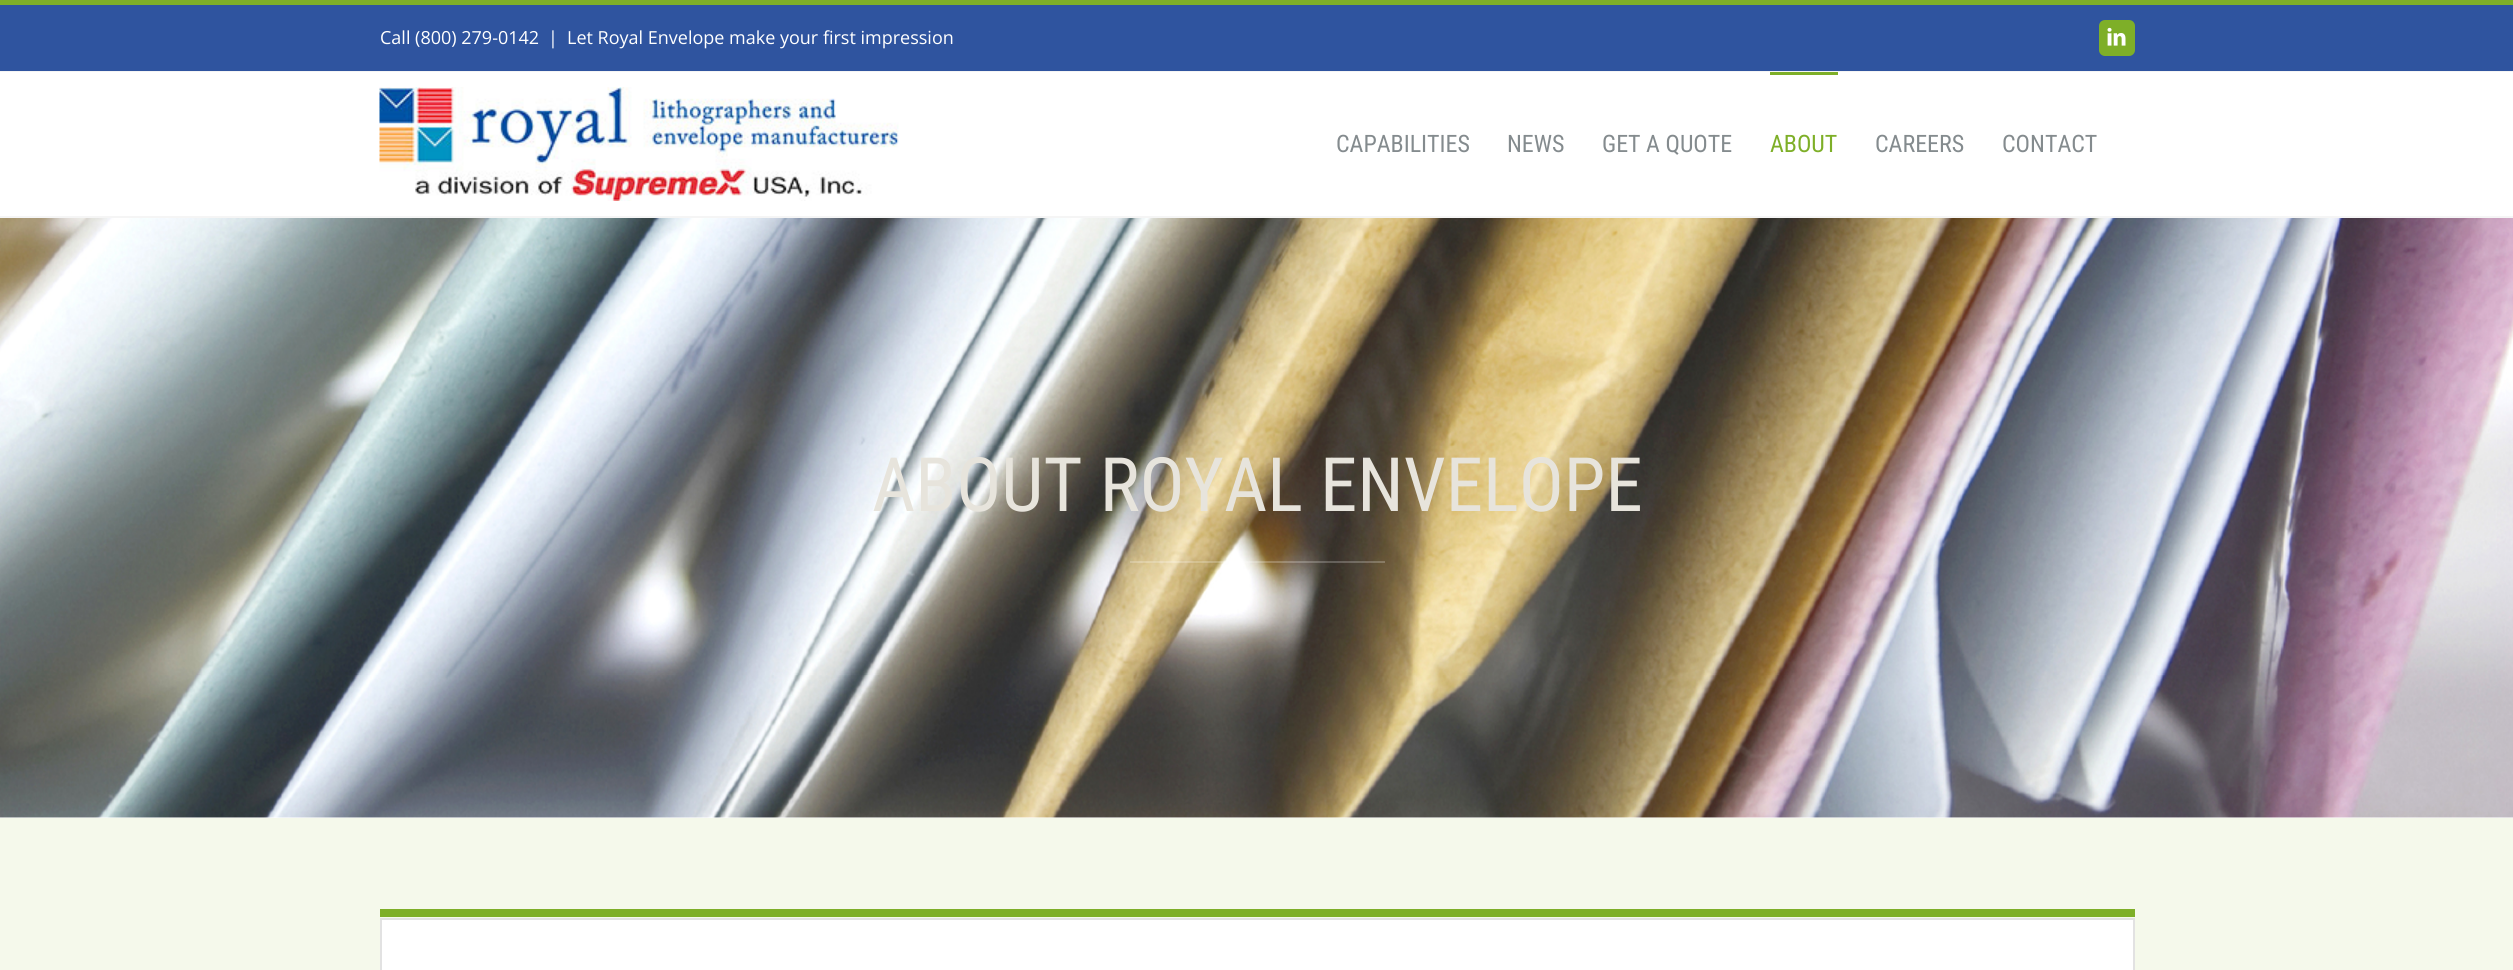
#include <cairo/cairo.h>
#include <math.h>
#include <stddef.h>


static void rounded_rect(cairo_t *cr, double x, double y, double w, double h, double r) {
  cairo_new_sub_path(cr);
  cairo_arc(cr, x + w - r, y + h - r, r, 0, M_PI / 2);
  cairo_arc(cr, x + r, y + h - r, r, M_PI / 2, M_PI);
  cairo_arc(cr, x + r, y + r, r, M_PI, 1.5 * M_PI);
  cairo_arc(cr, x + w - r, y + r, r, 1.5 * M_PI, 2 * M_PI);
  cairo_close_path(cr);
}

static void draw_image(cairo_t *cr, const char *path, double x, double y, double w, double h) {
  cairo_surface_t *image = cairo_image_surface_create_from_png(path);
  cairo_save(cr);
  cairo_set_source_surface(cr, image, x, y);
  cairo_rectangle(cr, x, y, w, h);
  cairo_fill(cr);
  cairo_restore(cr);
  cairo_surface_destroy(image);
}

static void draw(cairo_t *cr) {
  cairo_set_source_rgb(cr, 1, 1, 1);
  cairo_paint(cr);
  cairo_set_source_rgb(cr, 47 / 255.0, 84 / 255.0, 159 / 255.0);
  cairo_rectangle(cr, 0, 5, 2513, 66);
  cairo_fill(cr);
  cairo_set_source_rgb(cr, 126 / 255.0, 175 / 255.0, 40 / 255.0);
  cairo_rectangle(cr, 0, 0, 2513, 5);
  cairo_fill(cr);
  cairo_set_source_rgb(cr, 245 / 255.0, 245 / 255.0, 245 / 255.0);
  cairo_rectangle(cr, 0, 71, 2513, 1);
  cairo_fill(cr);
  cairo_set_source_rgb(cr, 126 / 255.0, 175 / 255.0, 40 / 255.0);
  rounded_rect(cr, 2100, 21, 34, 34, 5);
  cairo_fill_preserve(cr);
  cairo_stroke(cr);
  draw_image(cr, "images/1.png", 2107, 27, 19, 19);
  cairo_set_source_rgb(cr, 245 / 255.0, 245 / 255.0, 245 / 255.0);
  cairo_rectangle(cr, 0, 216, 2513, 2);
  cairo_fill(cr);
  draw_image(cr, "images/2.png", 379, 87, 520, 114);
  cairo_set_source_rgb(cr, 126 / 255.0, 175 / 255.0, 40 / 255.0);
  cairo_rectangle(cr, 1770, 72, 68, 3);
  cairo_fill(cr);
  draw_image(cr, "images/3.png", 0, 218, 2513, 600);
  cairo_set_source_rgba(cr, 1, 1, 1, 0.22);
  cairo_rectangle(cr, 1130, 561, 255, 2);
  cairo_fill(cr);
  cairo_set_source_rgb(cr, 245 / 255.0, 249 / 255.0, 235 / 255.0);
  cairo_rectangle(cr, 0, 818, 2513, 152);
  cairo_fill(cr);
  cairo_set_source_rgb(cr, 126 / 255.0, 175 / 255.0, 40 / 255.0);
  cairo_rectangle(cr, 380, 909, 1755, 8);
  cairo_fill(cr);
  cairo_set_source_rgb(cr, 1, 1, 1);
  cairo_rectangle(cr, 381, 919, 1753, 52);
  cairo_fill_preserve(cr);
  cairo_set_source_rgb(cr, 226 / 255.0, 226 / 255.0, 226 / 255.0);
  cairo_stroke(cr);
  cairo_select_font_face(cr, "Open Sans", CAIRO_FONT_SLANT_NORMAL, CAIRO_FONT_WEIGHT_NORMAL);
  cairo_set_font_size(cr, 18);
  cairo_set_source_rgb(cr, 1, 1, 1);
  cairo_move_to(cr, 380, 44);
  cairo_show_text(cr, "Call (800) 279-0142");
  cairo_move_to(cr, 548, 44);
  cairo_show_text(cr, "|");
  cairo_move_to(cr, 567, 44);
  cairo_show_text(cr, "Let Royal Envelope make your first impression");
  cairo_select_font_face(cr, "Roboto Condensed", CAIRO_FONT_SLANT_NORMAL, CAIRO_FONT_WEIGHT_NORMAL);
  cairo_set_font_size(cr, 24);
  cairo_set_source_rgb(cr, 132 / 255.0, 139 / 255.0, 142 / 255.0);
  cairo_move_to(cr, 1336, 152);
  cairo_show_text(cr, "CAPABILITIES");
  cairo_move_to(cr, 1507, 152);
  cairo_show_text(cr, "NEWS");
  cairo_move_to(cr, 1602, 152);
  cairo_show_text(cr, "GET A QUOTE");
  cairo_set_source_rgb(cr, 126 / 255.0, 175 / 255.0, 40 / 255.0);
  cairo_move_to(cr, 1770, 152);
  cairo_show_text(cr, "ABOUT");
  cairo_set_source_rgb(cr, 132 / 255.0, 139 / 255.0, 142 / 255.0);
  cairo_move_to(cr, 1875, 152);
  cairo_show_text(cr, "CAREERS");
  cairo_move_to(cr, 2002, 152);
  cairo_show_text(cr, "CONTACT");
  cairo_set_font_size(cr, 75);
  cairo_set_source_rgb(cr, 231 / 255.0, 228 / 255.0, 220 / 255.0);
  cairo_move_to(cr, 872, 511);
  cairo_show_text(cr, "ABOUT ROYAL ENVELOPE");
}

int main(void) {
  cairo_surface_t *surface = cairo_image_surface_create(CAIRO_FORMAT_RGB24, 2513, 970);
  cairo_t *cr = cairo_create(surface);
  cairo_font_options_t *options = cairo_font_options_create();
  cairo_font_options_set_hint_metrics(options, CAIRO_HINT_METRICS_OFF);
  cairo_font_options_set_hint_style(options, CAIRO_HINT_STYLE_NONE);
  cairo_set_font_options(cr, options);
  cairo_set_miter_limit(cr, 4);
  draw(cr);
  cairo_surface_write_to_png(surface, "out.png");
  cairo_font_options_destroy(options);
  cairo_destroy(cr);
  cairo_surface_destroy(surface);
  return 0;
}
